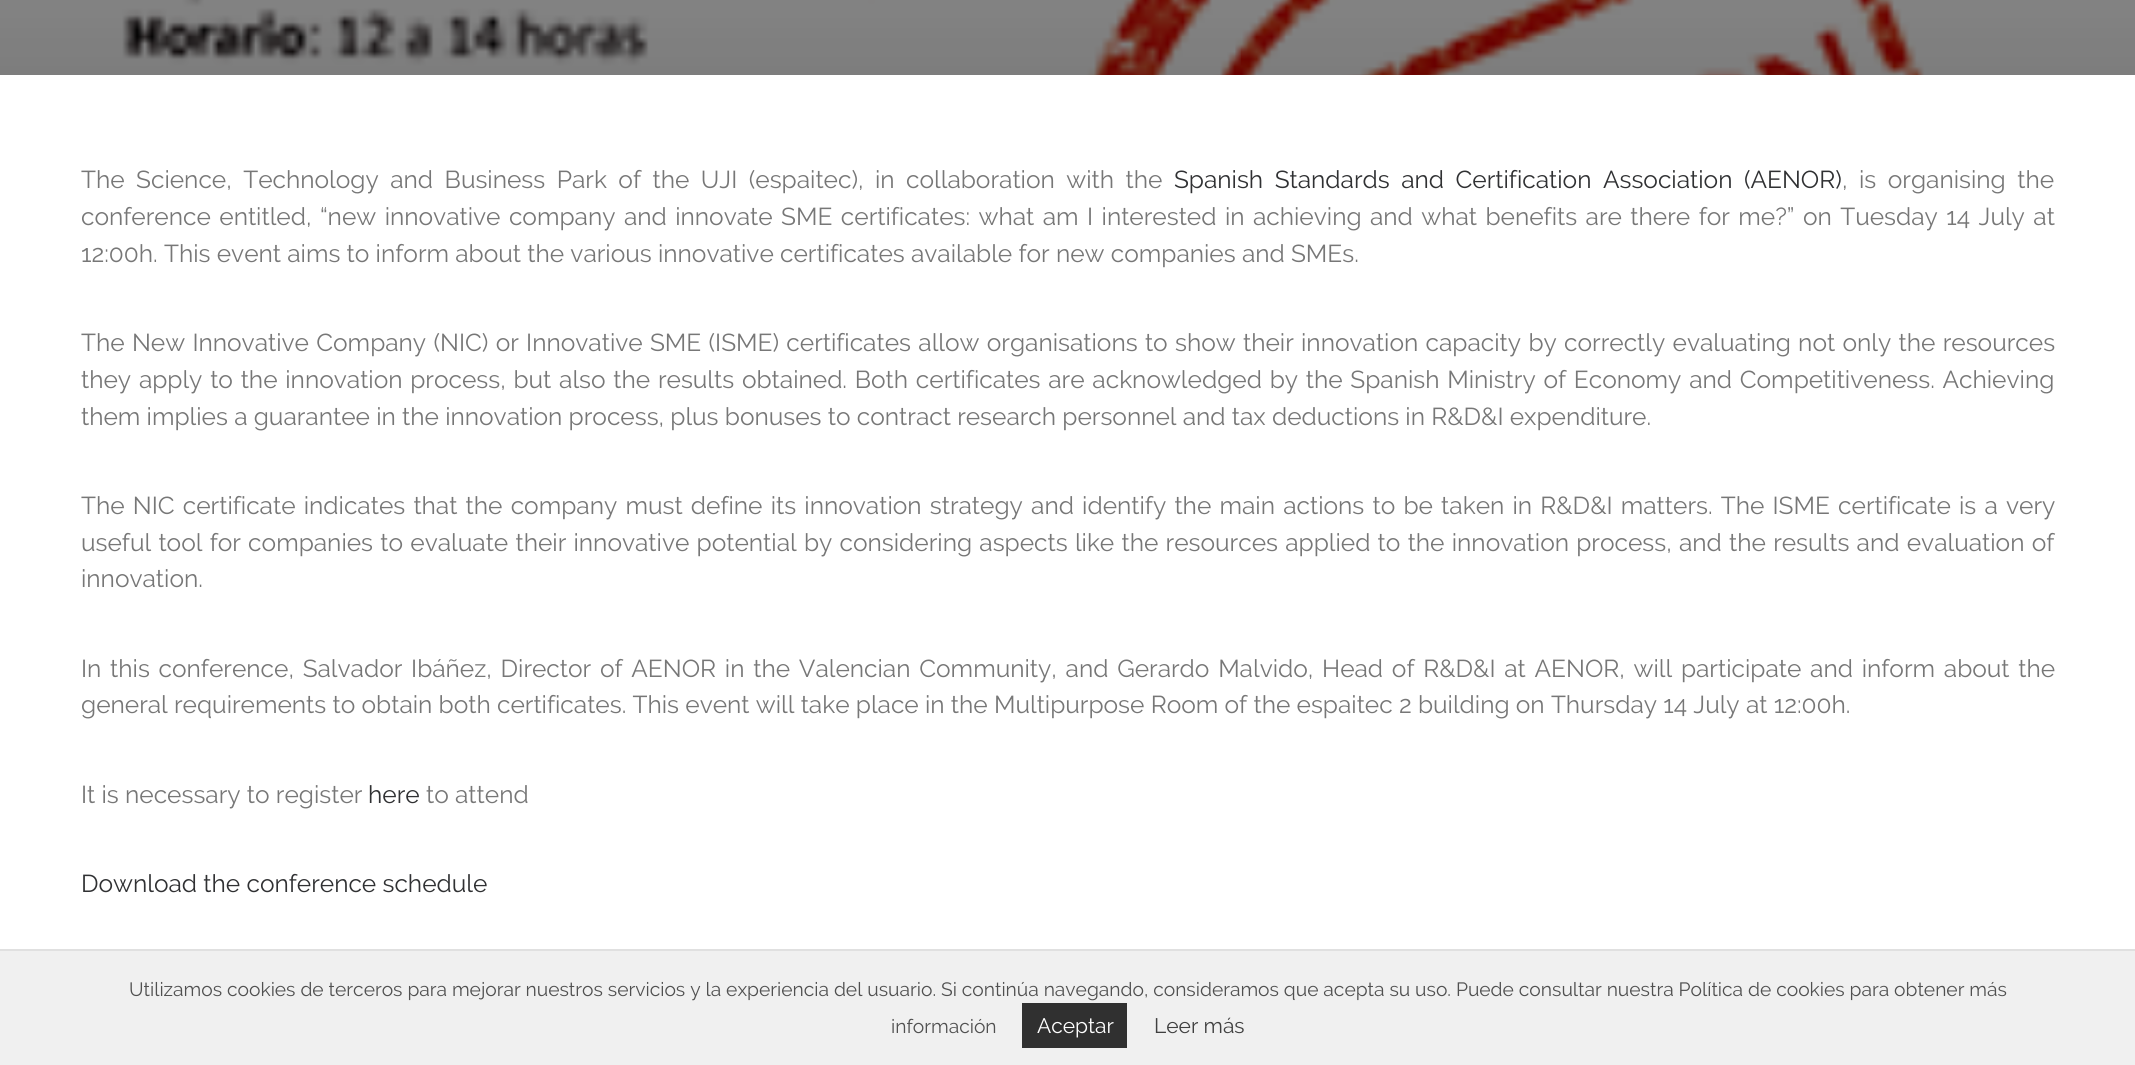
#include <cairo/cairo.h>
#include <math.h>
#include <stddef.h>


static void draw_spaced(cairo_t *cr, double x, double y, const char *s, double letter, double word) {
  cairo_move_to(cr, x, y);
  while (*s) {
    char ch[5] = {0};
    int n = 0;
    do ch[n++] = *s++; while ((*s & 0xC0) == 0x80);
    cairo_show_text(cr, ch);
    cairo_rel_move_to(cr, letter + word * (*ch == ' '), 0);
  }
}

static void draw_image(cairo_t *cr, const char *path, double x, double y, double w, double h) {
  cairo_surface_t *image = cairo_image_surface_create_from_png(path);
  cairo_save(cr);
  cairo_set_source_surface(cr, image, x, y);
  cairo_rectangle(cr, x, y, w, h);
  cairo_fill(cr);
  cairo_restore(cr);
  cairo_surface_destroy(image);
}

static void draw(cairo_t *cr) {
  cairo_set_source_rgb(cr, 1, 1, 1);
  cairo_paint(cr);
  draw_image(cr, "images/1.png", 0, 0, 2135, 75);
  cairo_set_source_rgb(cr, 240 / 255.0, 240 / 255.0, 240 / 255.0);
  cairo_rectangle(cr, 0, 951, 2135, 114);
  cairo_fill(cr);
  cairo_set_source_rgb(cr, 224 / 255.0, 224 / 255.0, 224 / 255.0);
  cairo_rectangle(cr, 0, 949, 2135, 2);
  cairo_fill(cr);
  cairo_set_source_rgb(cr, 48 / 255.0, 48 / 255.0, 48 / 255.0);
  cairo_rectangle(cr, 1022, 1003, 105, 45);
  cairo_fill(cr);
  cairo_select_font_face(cr, "Raleway", CAIRO_FONT_SLANT_NORMAL, CAIRO_FONT_WEIGHT_NORMAL);
  cairo_set_font_size(cr, 24.5);
  cairo_set_source_rgb(cr, 119 / 255.0, 119 / 255.0, 119 / 255.0);
  draw_spaced(cr, 81, 188, "The Science, Technology and Business Park of the UJI (espaitec), in collaboration with the", 0, 5.25);
  cairo_set_source_rgb(cr, 48 / 255.0, 49 / 255.0, 51 / 255.0);
  draw_spaced(cr, 1174, 188, "Spanish Standards and Certification Association (AENOR)", 0, 5.25);
  cairo_set_source_rgb(cr, 119 / 255.0, 119 / 255.0, 119 / 255.0);
  draw_spaced(cr, 1842, 188, ", is organising the", 0, 5.25);
  draw_spaced(cr, 81, 225, "conference entitled, “new innovative company and innovate SME certificates: what am I interested in achieving and what benefits are there for me?” on Tuesday 14 July at", 0, 2.2);
  cairo_move_to(cr, 81, 262);
  cairo_show_text(cr, "12:00h. This event aims to inform about the various innovative certificates available for new companies and SMEs.");
  draw_spaced(cr, 81, 351, "The New Innovative Company (NIC) or Innovative SME (ISME) certificates allow organisations to show their innovation capacity by correctly evaluating not only the resources", 0, 1.05);
  draw_spaced(cr, 81, 388, "they apply to the innovation process, but also the results obtained. Both certificates are acknowledged by the Spanish Ministry of Economy and Competitiveness. Achieving", 0, 1.5);
  cairo_move_to(cr, 81, 425);
  cairo_show_text(cr, "them implies a guarantee in the innovation process, plus bonuses to contract research personnel and tax deductions in R&D&I expenditure.");
  draw_spaced(cr, 81, 514, "The NIC certificate indicates that the company must define its innovation strategy and identify the main actions to be taken in R&D&I matters. The ISME certificate is a very", 0, 1.95);
  draw_spaced(cr, 81, 551, "useful tool for companies to evaluate their innovative potential by considering aspects like the resources applied to the innovation process, and the results and evaluation of", 0, 1);
  cairo_move_to(cr, 81, 587);
  cairo_show_text(cr, "innovation.");
  draw_spaced(cr, 81, 677, "In this conference, Salvador Ibáñez, Director of AENOR in the Valencian Community, and Gerardo Malvido, Head of R&D&I at AENOR, will participate and inform about the", 0, 2.5);
  cairo_move_to(cr, 81, 713);
  cairo_show_text(cr, "general requirements to obtain both certificates. This event will take place in the Multipurpose Room of the espaitec 2 building on Thursday 14 July at 12:00h.");
  cairo_move_to(cr, 81, 803);
  cairo_show_text(cr, "It is necessary to register");
  cairo_set_source_rgb(cr, 48 / 255.0, 49 / 255.0, 51 / 255.0);
  cairo_move_to(cr, 368, 803);
  cairo_show_text(cr, "here");
  cairo_set_source_rgb(cr, 119 / 255.0, 119 / 255.0, 119 / 255.0);
  cairo_move_to(cr, 426, 803);
  cairo_show_text(cr, "to attend");
  cairo_set_source_rgb(cr, 48 / 255.0, 49 / 255.0, 51 / 255.0);
  cairo_move_to(cr, 81, 892);
  cairo_show_text(cr, "Download the conference schedule");
  cairo_set_font_size(cr, 19.25);
  cairo_set_source_rgb(cr, 80 / 255.0, 80 / 255.0, 80 / 255.0);
  cairo_move_to(cr, 129, 996);
  cairo_show_text(cr, "Utilizamos cookies de terceros para mejorar nuestros servicios y la experiencia del usuario. Si continúa navegando, consideramos que acepta su uso. Puede consultar nuestra Política de cookies para obtener más");
  cairo_move_to(cr, 891, 1033);
  cairo_show_text(cr, "información");
  cairo_set_font_size(cr, 21);
  cairo_set_source_rgb(cr, 1, 1, 1);
  cairo_move_to(cr, 1037, 1033);
  cairo_show_text(cr, "Aceptar");
  cairo_set_source_rgb(cr, 64 / 255.0, 64 / 255.0, 64 / 255.0);
  cairo_move_to(cr, 1154, 1033);
  cairo_show_text(cr, "Leer más");
}

int main(void) {
  cairo_surface_t *surface = cairo_image_surface_create(CAIRO_FORMAT_RGB24, 2135, 1065);
  cairo_t *cr = cairo_create(surface);
  cairo_font_options_t *options = cairo_font_options_create();
  cairo_font_options_set_hint_metrics(options, CAIRO_HINT_METRICS_OFF);
  cairo_font_options_set_hint_style(options, CAIRO_HINT_STYLE_NONE);
  cairo_set_font_options(cr, options);
  cairo_set_miter_limit(cr, 4);
  draw(cr);
  cairo_surface_write_to_png(surface, "out.png");
  cairo_font_options_destroy(options);
  cairo_destroy(cr);
  cairo_surface_destroy(surface);
  return 0;
}
